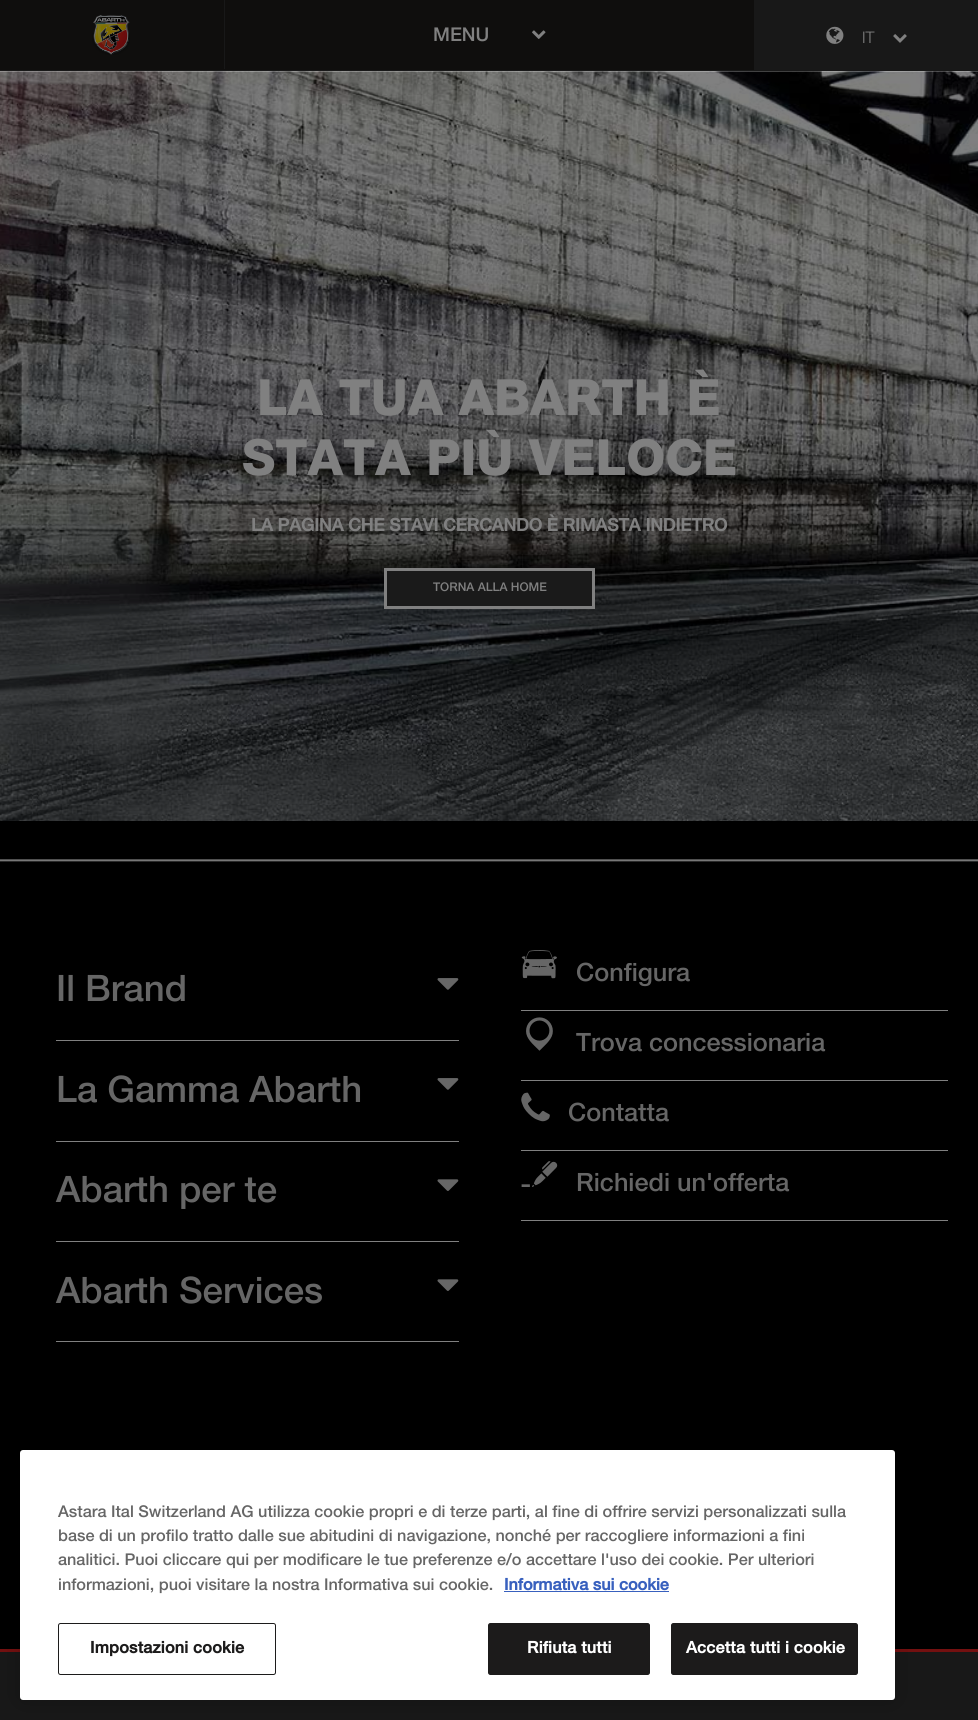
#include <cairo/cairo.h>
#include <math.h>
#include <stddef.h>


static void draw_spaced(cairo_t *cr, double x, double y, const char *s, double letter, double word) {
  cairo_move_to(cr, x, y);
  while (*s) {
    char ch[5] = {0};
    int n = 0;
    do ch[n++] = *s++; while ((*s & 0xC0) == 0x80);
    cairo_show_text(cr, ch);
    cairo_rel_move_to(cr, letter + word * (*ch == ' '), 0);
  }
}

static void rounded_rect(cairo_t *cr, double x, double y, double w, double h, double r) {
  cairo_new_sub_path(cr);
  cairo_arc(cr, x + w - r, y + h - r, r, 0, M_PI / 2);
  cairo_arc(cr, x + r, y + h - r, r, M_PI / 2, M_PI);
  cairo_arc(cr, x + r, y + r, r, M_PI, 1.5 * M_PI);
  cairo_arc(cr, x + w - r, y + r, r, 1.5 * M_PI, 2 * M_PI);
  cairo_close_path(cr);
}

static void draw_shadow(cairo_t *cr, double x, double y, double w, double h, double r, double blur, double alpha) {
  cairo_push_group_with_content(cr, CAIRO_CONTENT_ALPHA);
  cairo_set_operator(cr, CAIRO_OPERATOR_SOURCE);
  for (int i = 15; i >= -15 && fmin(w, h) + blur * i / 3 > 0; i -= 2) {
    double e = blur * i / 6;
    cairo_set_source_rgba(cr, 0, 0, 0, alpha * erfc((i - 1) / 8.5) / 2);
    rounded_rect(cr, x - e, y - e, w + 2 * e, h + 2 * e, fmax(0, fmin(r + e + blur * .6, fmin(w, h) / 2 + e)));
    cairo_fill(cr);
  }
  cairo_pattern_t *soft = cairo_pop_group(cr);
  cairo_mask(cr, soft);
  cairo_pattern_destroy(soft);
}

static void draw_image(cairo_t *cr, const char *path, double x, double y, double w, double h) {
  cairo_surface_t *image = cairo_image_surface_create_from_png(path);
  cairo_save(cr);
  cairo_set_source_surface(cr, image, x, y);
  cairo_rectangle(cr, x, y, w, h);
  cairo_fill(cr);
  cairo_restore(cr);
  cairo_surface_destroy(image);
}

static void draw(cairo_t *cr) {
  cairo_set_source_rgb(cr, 1, 1, 1);
  cairo_paint(cr);
  cairo_set_source_rgb(cr, 15 / 255.0, 14 / 255.0, 13 / 255.0);
  cairo_rectangle(cr, 0, 0, 754, 70);
  cairo_fill(cr);
  cairo_set_source_rgb(cr, 24 / 255.0, 24 / 255.0, 24 / 255.0);
  cairo_rectangle(cr, 0, 70, 754, 1);
  cairo_fill(cr);
  cairo_rectangle(cr, 224, 0, 1, 69);
  cairo_fill(cr);
  draw_image(cr, "images/1.png", 92, 15, 38, 40);
  draw_image(cr, "images/2.png", 532, 30, 14, 9);
  cairo_rectangle(cr, 754, 0, 224, 71);
  cairo_fill(cr);
  draw_image(cr, "images/3.png", 826, 26, 18, 18);
  draw_image(cr, "images/4.png", 893, 34, 14, 9);
  cairo_rectangle(cr, 0, 1652, 978, 68);
  cairo_fill(cr);
  cairo_set_source_rgb(cr, 116 / 255.0, 16 / 255.0, 16 / 255.0);
  cairo_rectangle(cr, 0, 1649, 978, 3);
  cairo_fill(cr);
  draw_image(cr, "images/5.png", 0, 71, 978, 750);
  cairo_set_source_rgb(cr, 26 / 255.0, 26 / 255.0, 26 / 255.0);
  cairo_rectangle(cr, 385.5, 569.5, 208, 38);
  cairo_fill_preserve(cr);
  cairo_set_source_rgb(cr, 128 / 255.0, 128 / 255.0, 128 / 255.0);
  cairo_set_line_width(cr, 3);
  cairo_stroke(cr);
  cairo_set_source_rgb(cr, 0, 0, 0);
  cairo_rectangle(cr, 0, 821, 978, 828);
  cairo_fill(cr);
  cairo_set_source_rgb(cr, 43 / 255.0, 43 / 255.0, 43 / 255.0);
  cairo_rectangle(cr, 0, 861, 978, 1);
  cairo_fill(cr);
  cairo_set_source_rgb(cr, 80 / 255.0, 80 / 255.0, 80 / 255.0);
  cairo_rectangle(cr, 0, 859, 978, 1);
  cairo_fill(cr);
  cairo_set_source_rgb(cr, 119 / 255.0, 119 / 255.0, 119 / 255.0);
  cairo_rectangle(cr, 0, 860, 978, 1);
  cairo_fill(cr);
  cairo_set_source_rgb(cr, 128 / 255.0, 128 / 255.0, 128 / 255.0);
  cairo_rectangle(cr, 56, 1040, 403, 1);
  cairo_fill(cr);
  draw_image(cr, "images/6.png", 437, 978, 22, 12);
  cairo_rectangle(cr, 521, 1010, 427, 1);
  cairo_fill(cr);
  draw_image(cr, "images/7.png", 521, 950, 36, 29);
  cairo_rectangle(cr, 521, 1080, 427, 1);
  cairo_fill(cr);
  draw_image(cr, "images/8.png", 526, 1017, 27, 34);
  cairo_rectangle(cr, 521, 1150, 427, 1);
  cairo_fill(cr);
  draw_image(cr, "images/9.png", 521, 1092, 29, 30);
  cairo_rectangle(cr, 521, 1220, 427, 1);
  cairo_fill(cr);
  draw_image(cr, "images/10.png", 521, 1161, 37, 26);
  cairo_rectangle(cr, 56, 1141, 403, 1);
  cairo_fill(cr);
  draw_image(cr, "images/6.png", 437, 1078, 22, 12);
  cairo_rectangle(cr, 56, 1241, 403, 1);
  cairo_fill(cr);
  draw_image(cr, "images/11.png", 437, 1179, 22, 12);
  cairo_rectangle(cr, 56, 1341, 403, 1);
  cairo_fill(cr);
  draw_image(cr, "images/11.png", 437, 1279, 22, 12);
  cairo_set_source_rgb(cr, 0, 0, 0);
  draw_shadow(cr, 20, 1450, 875, 250, 3, 11, 0.2);
  cairo_set_source_rgb(cr, 1, 1, 1);
  rounded_rect(cr, 20, 1450, 875, 250, 3);
  cairo_fill(cr);
  cairo_set_source_rgb(cr, 56 / 255.0, 96 / 255.0, 190 / 255.0);
  cairo_rectangle(cr, 504, 1591, 165, 1);
  cairo_fill(cr);
  rounded_rect(cr, 58.5, 1623.5, 217, 51, 2);
  cairo_set_source_rgb(cr, 28 / 255.0, 27 / 255.0, 27 / 255.0);
  cairo_set_line_width(cr, 1);
  cairo_stroke(cr);
  rounded_rect(cr, 488.5, 1623.5, 161, 51, 2);
  cairo_fill_preserve(cr);
  cairo_stroke(cr);
  rounded_rect(cr, 671.5, 1623.5, 186, 51, 2);
  cairo_fill_preserve(cr);
  cairo_stroke(cr);
  cairo_select_font_face(cr, "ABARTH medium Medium", CAIRO_FONT_SLANT_NORMAL, CAIRO_FONT_WEIGHT_NORMAL);
  cairo_set_font_size(cr, 19);
  cairo_set_source_rgb(cr, 128 / 255.0, 128 / 255.0, 128 / 255.0);
  cairo_move_to(cr, 433, 41);
  cairo_show_text(cr, "MENU");
  cairo_select_font_face(cr, "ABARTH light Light", CAIRO_FONT_SLANT_NORMAL, CAIRO_FONT_WEIGHT_NORMAL);
  cairo_set_font_size(cr, 16);
  cairo_move_to(cr, 862, 43);
  cairo_show_text(cr, "IT");
  cairo_select_font_face(cr, "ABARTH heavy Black", CAIRO_FONT_SLANT_NORMAL, CAIRO_FONT_WEIGHT_NORMAL);
  cairo_set_font_size(cr, 50);
  cairo_move_to(cr, 257, 415);
  cairo_show_text(cr, "LA TUA ABARTH È");
  cairo_move_to(cr, 242, 475);
  cairo_show_text(cr, "STATA PIÙ VELOCE");
  cairo_select_font_face(cr, "ABARTH medium", CAIRO_FONT_SLANT_NORMAL, CAIRO_FONT_WEIGHT_BOLD);
  cairo_set_font_size(cr, 17.5);
  cairo_move_to(cr, 251, 531);
  cairo_show_text(cr, "LA PAGINA CHE STAVI CERCANDO È RIMASTA INDIETRO");
  cairo_select_font_face(cr, "ABARTH medium Medium", CAIRO_FONT_SLANT_NORMAL, CAIRO_FONT_WEIGHT_NORMAL);
  cairo_set_font_size(cr, 12);
  cairo_move_to(cr, 433, 591);
  cairo_show_text(cr, "TORNA ALLA HOME");
  cairo_set_font_size(cr, 36.5);
  cairo_set_source_rgb(cr, 102 / 255.0, 102 / 255.0, 102 / 255.0);
  cairo_move_to(cr, 56, 1001);
  cairo_show_text(cr, "Il Brand");
  cairo_set_font_size(cr, 25.25);
  cairo_move_to(cr, 576, 981);
  cairo_show_text(cr, "Configura");
  cairo_move_to(cr, 576, 1051);
  cairo_show_text(cr, "Trova concessionaria");
  cairo_move_to(cr, 568, 1121);
  cairo_show_text(cr, "Contatta");
  cairo_move_to(cr, 576, 1191);
  cairo_show_text(cr, "Richiedi un'offerta");
  cairo_set_font_size(cr, 36.5);
  cairo_move_to(cr, 56, 1102);
  cairo_show_text(cr, "La Gamma Abarth");
  cairo_move_to(cr, 56, 1202);
  cairo_show_text(cr, "Abarth per te");
  cairo_move_to(cr, 56, 1303);
  cairo_show_text(cr, "Abarth Services");
  cairo_set_font_size(cr, 16.25);
  cairo_move_to(cr, 58, 1517);
  cairo_show_text(cr, "Astara Ital Switzerland AG utilizza cookie propri e di terze parti, al fine di offrire servizi personalizzati sulla");
  cairo_move_to(cr, 58, 1541);
  cairo_show_text(cr, "base di un profilo tratto dalle sue abitudini di navigazione, nonché per raccogliere informazioni a fini");
  cairo_move_to(cr, 58, 1565);
  cairo_show_text(cr, "analitici. Puoi cliccare qui per modificare le tue preferenze e/o accettare l'uso dei cookie. Per ulteriori");
  cairo_move_to(cr, 58, 1590);
  cairo_show_text(cr, "informazioni, puoi visitare la nostra Informativa sui cookie.");
  cairo_select_font_face(cr, "ABARTH medium", CAIRO_FONT_SLANT_NORMAL, CAIRO_FONT_WEIGHT_BOLD);
  cairo_set_source_rgb(cr, 56 / 255.0, 96 / 255.0, 190 / 255.0);
  cairo_move_to(cr, 504, 1590);
  cairo_show_text(cr, "Informativa sui cookie");
  cairo_set_source_rgb(cr, 28 / 255.0, 27 / 255.0, 27 / 255.0);
  draw_spaced(cr, 90, 1653, "Impostazioni cookie", 0.2, 0);
  cairo_set_source_rgb(cr, 1, 1, 1);
  draw_spaced(cr, 527, 1653, "Rifiuta tutti", 0.2, 0);
  draw_spaced(cr, 686, 1653, "Accetta tutti i cookie", 0.2, 0);
}

int main(void) {
  cairo_surface_t *surface = cairo_image_surface_create(CAIRO_FORMAT_RGB24, 978, 1720);
  cairo_t *cr = cairo_create(surface);
  cairo_font_options_t *options = cairo_font_options_create();
  cairo_font_options_set_hint_metrics(options, CAIRO_HINT_METRICS_OFF);
  cairo_font_options_set_hint_style(options, CAIRO_HINT_STYLE_NONE);
  cairo_set_font_options(cr, options);
  cairo_set_miter_limit(cr, 4);
  draw(cr);
  cairo_surface_write_to_png(surface, "out.png");
  cairo_font_options_destroy(options);
  cairo_destroy(cr);
  cairo_surface_destroy(surface);
  return 0;
}
